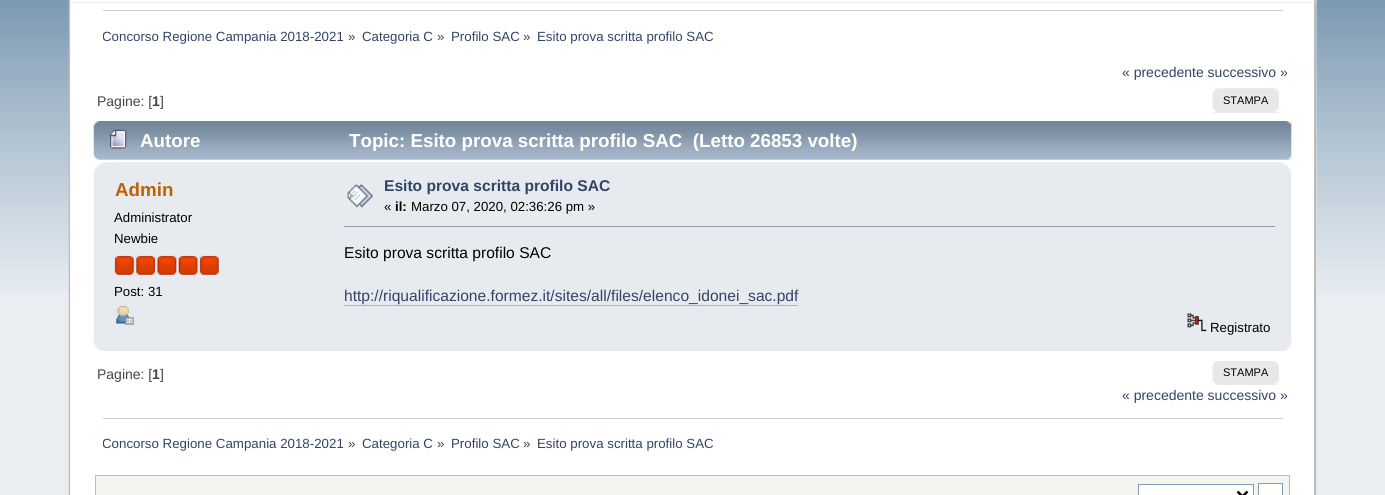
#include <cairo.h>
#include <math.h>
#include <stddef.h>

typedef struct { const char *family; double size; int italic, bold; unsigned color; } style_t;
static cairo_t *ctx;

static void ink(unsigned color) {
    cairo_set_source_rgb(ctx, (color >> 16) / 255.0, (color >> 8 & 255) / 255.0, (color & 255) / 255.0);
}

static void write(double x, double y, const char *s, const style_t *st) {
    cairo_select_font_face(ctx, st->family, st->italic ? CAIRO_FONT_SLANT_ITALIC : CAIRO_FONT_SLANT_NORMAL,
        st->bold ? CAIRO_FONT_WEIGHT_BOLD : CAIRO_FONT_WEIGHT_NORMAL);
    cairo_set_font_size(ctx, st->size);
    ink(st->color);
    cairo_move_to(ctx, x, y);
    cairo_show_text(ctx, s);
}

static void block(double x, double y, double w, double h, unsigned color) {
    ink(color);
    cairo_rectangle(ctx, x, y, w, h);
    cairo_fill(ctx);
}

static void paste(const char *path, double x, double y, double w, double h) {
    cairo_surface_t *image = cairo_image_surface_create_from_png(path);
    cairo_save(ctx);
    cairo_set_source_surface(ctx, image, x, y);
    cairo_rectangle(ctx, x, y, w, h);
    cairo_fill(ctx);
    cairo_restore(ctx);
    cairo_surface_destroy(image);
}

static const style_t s1 = {"Liberation Sans", 13.3, 0, 0, 0x334466};
static const style_t s2 = {"Liberation Sans", 13.3, 0, 0, 0x444444};
static const style_t s3 = {"Liberation Sans", 14, 0, 0, 0x334466};
static const style_t s4 = {"Liberation Sans", 14, 0, 0, 0x444444};
static const style_t s5 = {"Liberation Sans", 14, 0, 1, 0x444444};
static const style_t s6 = {"Liberation Sans", 11, 0, 0, 0x000000};
static const style_t s7 = {"Liberation Sans", 18.75, 0, 1, 0xffffff};
static const style_t s8 = {"Liberation Sans", 18.75, 0, 1, 0xc06002};
static const style_t s9 = {"Liberation Sans", 13.25, 0, 0, 0x000000};
static const style_t s10 = {"Liberation Sans", 15.6, 0, 1, 0x334466};
static const style_t s11 = {"Liberation Sans", 13.25, 0, 1, 0x000000};
static const style_t s12 = {"Liberation Sans", 15.6, 0, 0, 0x000000};
static const style_t s13 = {"Liberation Sans", 15.6, 0, 0, 0x334466};

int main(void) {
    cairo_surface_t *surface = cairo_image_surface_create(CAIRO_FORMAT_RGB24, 1385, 495);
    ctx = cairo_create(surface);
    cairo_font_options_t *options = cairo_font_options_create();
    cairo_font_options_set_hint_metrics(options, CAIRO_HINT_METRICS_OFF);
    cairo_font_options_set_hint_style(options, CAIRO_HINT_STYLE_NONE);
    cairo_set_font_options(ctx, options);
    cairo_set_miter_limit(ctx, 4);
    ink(0xe9eef2);
    cairo_paint(ctx);
    paste("pic1.png", 0, 0, 1385, 293);
    paste("pic2.png", 68, 0, 1246, 3);
    block(1314, 0, 3, 3, 0xc0c0c0);
    paste("pic3.png", 68, 2, 1249, 493);
    paste("pic4.png", 1313, 2, 4, 493);
    block(103, 10, 1180, 1, 0xcccccc);
    cairo_save(ctx);
    cairo_rectangle(ctx, 103, 11, 1180, 42);
    cairo_clip(ctx);
    write(102, 41, "Concorso Regione Campania 2018-2021", &s1);
    cairo_restore(ctx);
    write(348, 41, "»", &s2);
    write(362, 41, "Categoria C", &s1);
    write(437, 41, "»", &s2);
    write(451, 41, "Profilo SAC", &s1);
    write(523, 41, "»", &s2);
    write(537, 41, "Esito prova scritta profilo SAC", &s1);
    write(1122, 77, "« precedente successivo »", &s3);
    write(97, 106, "Pagine: [", &s4);
    write(152, 106, "1", &s5);
    write(160, 106, "]", &s4);
    block(1213, 89, 66, 24, 0xe8e8e8);
    paste("pic5.png", 1212, 88, 67, 25);
    paste("pic6.png", 1223, 88, 56, 25);
    write(1223, 104, "STAMPA", &s6);
    paste("pic7.png", 93, 121, 1199, 39);
    paste("pic8.png", 1286, 121, 6, 39);
    paste("pic9.png", 109, 129, 18, 20);
    write(140, 147, "Autore", &s7);
    write(349, 147, "Topic: Esito prova scritta profilo SAC  (Letto 26853 volte)", &s7);
    block(94, 176, 1197, 162, 0xe7eaef);
    paste("pic10.png", 93, 162, 1199, 14);
    paste("pic11.png", 119, 162, 1173, 14);
    write(115, 196, "Admin", &s8);
    write(114, 222, "Administrator", &s9);
    write(114, 243, "Newbie", &s9);
    paste("pic12.png", 114, 255, 20, 20);
    paste("pic13.png", 136, 255, 20, 20);
    paste("pic14.png", 157, 255, 20, 20);
    paste("pic15.png", 178, 255, 20, 20);
    paste("pic16.png", 199, 255, 20, 20);
    write(114, 296, "Post: 31", &s9);
    paste("pic17.png", 116, 305, 18, 20);
    paste("pic18.png", 347, 184, 26, 24);
    write(384, 191, "Esito prova scritta profilo SAC", &s10);
    write(384, 211, "«", &s9);
    write(395, 211, "il:", &s11);
    write(411, 211, "Marzo 07, 2020, 02:36:26 pm »", &s9);
    block(344, 226, 931, 1, 0x9999aa);
    write(344, 258, "Esito prova scritta profilo SAC", &s12);
    write(344, 301, "http://riqualificazione.formez.it/sites/all/files/elenco_idonei_sac.pdf", &s13);
    block(344, 305, 454, 1, 0xa8b6cf);
    paste("pic19.png", 1187, 313, 20, 19);
    write(1210, 332, "Registrato", &s9);
    paste("pic20.png", 93, 338, 1199, 13);
    paste("pic21.png", 1284, 338, 8, 13);
    write(97, 379, "Pagine: [", &s4);
    write(152, 379, "1", &s5);
    write(160, 379, "]", &s4);
    block(1213, 361, 66, 24, 0xe8e8e8);
    paste("pic22.png", 1212, 361, 5, 24);
    paste("pic23.png", 1274, 361, 5, 24);
    write(1223, 376, "STAMPA", &s6);
    write(1122, 400, "« precedente successivo »", &s3);
    block(103, 418, 1180, 1, 0xcccccc);
    cairo_save(ctx);
    cairo_rectangle(ctx, 103, 419, 1180, 41);
    cairo_clip(ctx);
    write(102, 448, "Concorso Regione Campania 2018-2021", &s1);
    cairo_restore(ctx);
    write(348, 448, "»", &s2);
    write(362, 448, "Categoria C", &s1);
    write(437, 448, "»", &s2);
    write(451, 448, "Profilo SAC", &s1);
    write(523, 448, "»", &s2);
    write(537, 448, "Esito prova scritta profilo SAC", &s1);
    ink(0xf5f5f0);
    cairo_rectangle(ctx, 95.5, 475.5, 1194, 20);
    cairo_fill_preserve(ctx);
    ink(0xbbbbbb);
    cairo_set_line_width(ctx, 1);
    cairo_stroke(ctx);
    ink(0xffffff);
    cairo_rectangle(ctx, 1138.5, 484.5, 115, 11);
    cairo_fill_preserve(ctx);
    ink(0x7f9db9);
    cairo_stroke(ctx);
    cairo_new_path(ctx);
    cairo_move_to(ctx, 1237.5, 491.5);
    cairo_line_to(ctx, 1242.5, 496.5);
    cairo_line_to(ctx, 1247.5, 491.5);
    ink(0x000000);
    cairo_set_line_width(ctx, 2.5);
    cairo_stroke(ctx);
    ink(0xffffff);
    cairo_rectangle(ctx, 1258.5, 483.5, 24, 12);
    cairo_fill_preserve(ctx);
    ink(0x7f9db9);
    cairo_set_line_width(ctx, 1);
    cairo_stroke(ctx);
    cairo_surface_write_to_png(surface, "screenshot.png");
    cairo_font_options_destroy(options);
    cairo_destroy(ctx);
    cairo_surface_destroy(surface);
    return 0;
}
